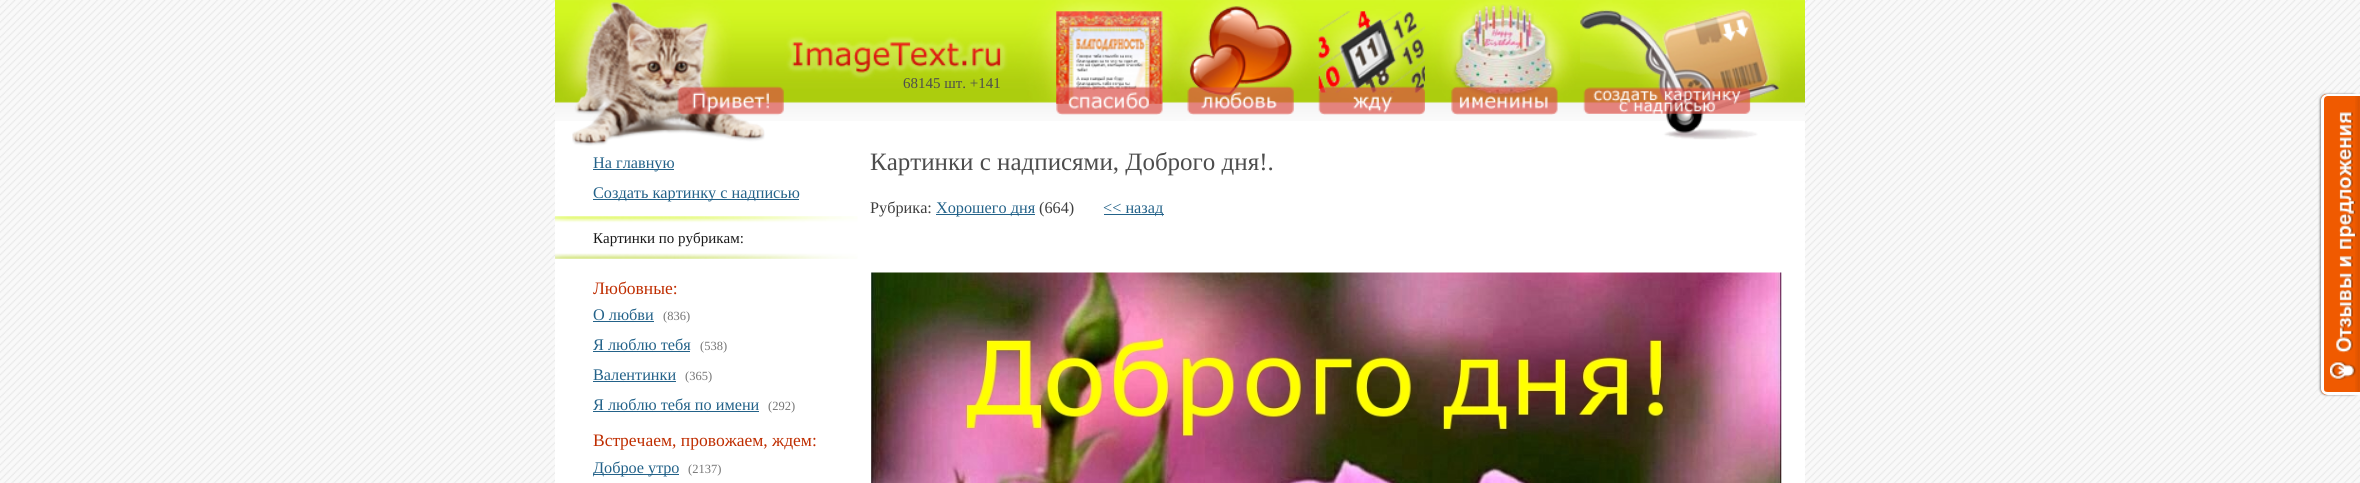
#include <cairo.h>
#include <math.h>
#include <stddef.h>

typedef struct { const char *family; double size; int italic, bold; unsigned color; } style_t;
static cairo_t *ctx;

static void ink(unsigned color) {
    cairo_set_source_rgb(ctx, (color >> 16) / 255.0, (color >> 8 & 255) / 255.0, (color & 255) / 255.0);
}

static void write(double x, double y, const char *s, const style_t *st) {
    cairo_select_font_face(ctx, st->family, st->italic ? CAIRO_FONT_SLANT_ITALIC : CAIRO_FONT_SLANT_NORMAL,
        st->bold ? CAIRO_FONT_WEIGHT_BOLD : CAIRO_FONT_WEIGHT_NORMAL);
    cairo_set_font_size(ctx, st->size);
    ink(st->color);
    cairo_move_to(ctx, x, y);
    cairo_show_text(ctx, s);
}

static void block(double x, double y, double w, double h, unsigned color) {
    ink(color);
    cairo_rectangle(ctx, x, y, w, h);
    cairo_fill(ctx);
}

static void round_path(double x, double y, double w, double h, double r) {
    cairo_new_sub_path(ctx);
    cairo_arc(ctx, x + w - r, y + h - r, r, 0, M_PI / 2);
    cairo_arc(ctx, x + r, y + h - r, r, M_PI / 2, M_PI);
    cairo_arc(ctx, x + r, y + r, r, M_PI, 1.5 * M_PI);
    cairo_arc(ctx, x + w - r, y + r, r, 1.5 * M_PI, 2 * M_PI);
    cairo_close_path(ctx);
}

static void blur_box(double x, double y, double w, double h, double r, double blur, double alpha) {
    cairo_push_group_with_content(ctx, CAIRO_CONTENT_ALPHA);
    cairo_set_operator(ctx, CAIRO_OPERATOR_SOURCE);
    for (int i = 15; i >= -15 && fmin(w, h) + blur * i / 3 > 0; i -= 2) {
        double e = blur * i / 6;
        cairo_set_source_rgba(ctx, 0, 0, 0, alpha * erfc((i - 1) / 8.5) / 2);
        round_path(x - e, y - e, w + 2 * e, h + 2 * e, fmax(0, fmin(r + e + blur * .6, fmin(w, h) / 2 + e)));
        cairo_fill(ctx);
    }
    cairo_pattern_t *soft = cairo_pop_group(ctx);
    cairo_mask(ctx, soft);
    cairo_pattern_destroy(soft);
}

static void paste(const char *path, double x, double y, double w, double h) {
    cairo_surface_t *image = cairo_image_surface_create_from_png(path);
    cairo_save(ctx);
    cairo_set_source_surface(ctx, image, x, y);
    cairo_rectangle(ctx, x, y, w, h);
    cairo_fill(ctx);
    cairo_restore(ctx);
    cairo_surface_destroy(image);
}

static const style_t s1 = {"Liberation Serif", 15, 0, 0, 0x4d4d4d};
static const style_t s2 = {"Liberation Serif", 16.25, 0, 0, 0x236289};
static const style_t s3 = {"Liberation Serif", 15, 0, 0, 0x191919};
static const style_t s4 = {"Liberation Serif", 17.5, 0, 0, 0xbf2d00};
static const style_t s5 = {"Liberation Serif", 12.5, 0, 0, 0x757575};
static const style_t s6 = {"Liberation Serif", 25, 0, 0, 0x4d4d4d};
static const style_t s7 = {"Liberation Serif", 16.25, 0, 0, 0x3e3e3e};

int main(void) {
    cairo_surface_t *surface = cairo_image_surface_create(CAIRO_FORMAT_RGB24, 2360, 483);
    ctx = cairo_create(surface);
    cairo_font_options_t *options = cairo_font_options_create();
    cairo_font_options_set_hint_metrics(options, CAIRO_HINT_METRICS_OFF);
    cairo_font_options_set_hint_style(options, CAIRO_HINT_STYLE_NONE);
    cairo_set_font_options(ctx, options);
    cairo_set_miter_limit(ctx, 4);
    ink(0xffffff);
    cairo_paint(ctx);
    paste("pic1.png", 0, 0, 2360, 483);
    block(555, 121, 1250, 362, 0xffffff);
    paste("pic2.png", 555, 0, 1250, 121);
    paste("pic3.png", 572, 2, 212, 144);
    write(903, 88, "68145 шт. +141", &s1);
    paste("pic4.png", 1056, 11, 107, 104);
    paste("pic5.png", 1187, 6, 107, 109);
    paste("pic6.png", 1318, 11, 107, 104);
    paste("pic7.png", 1451, 4, 107, 111);
    paste("pic8.png", 1580, 8, 200, 132);
    block(593, 169, 81, 1, 0x236289);
    write(593, 168, "На главную", &s2);
    block(593, 199, 206, 1, 0x236289);
    write(593, 198, "Создать картинку с надписью", &s2);
    paste("pic9.png", 555, 216, 303, 43);
    write(593, 243, "Картинки по рубрикам:", &s3);
    write(593, 294, "Любовные:", &s4);
    write(593, 320, "О любви", &s2);
    block(593, 321, 61, 1, 0x236289);
    write(663, 320, "(836)", &s5);
    write(593, 350, "Я люблю тебя", &s2);
    block(593, 351, 97, 1, 0x236289);
    write(700, 350, "(538)", &s5);
    write(593, 380, "Валентинки", &s2);
    block(593, 381, 83, 1, 0x236289);
    write(685, 380, "(365)", &s5);
    write(593, 410, "Я люблю тебя по имени", &s2);
    block(593, 411, 166, 1, 0x236289);
    write(768, 410, "(292)", &s5);
    write(593, 446, "Встречаем, провожаем, ждем:", &s4);
    block(593, 474, 86, 1, 0x236289);
    write(593, 473, "Доброе утро", &s2);
    write(688, 473, "(2137)", &s5);
    write(870, 170, "Картинки с надписями, Доброго дня!.", &s6);
    write(870, 213, "Рубрика:", &s7);
    block(936, 214, 99, 1, 0x236289);
    write(936, 213, "Хорошего дня", &s2);
    write(1039, 213, "(664)", &s7);
    block(1104, 214, 60, 1, 0x236289);
    write(1103, 213, "<< назад", &s2);
    paste("pic10.png", 871, 272, 911, 211);
    ink(0x888888);
    blur_box(2320, 94, 39, 301, 6, 1, 1);
    ink(0xf05a00);
    cairo_new_path(ctx);
    cairo_move_to(ctx, 2327, 94);
    cairo_line_to(ctx, 2360, 94);
    cairo_line_to(ctx, 2360, 395);
    cairo_line_to(ctx, 2327, 395);
    cairo_curve_to(ctx, 2323.5, 395, 2321, 392.5, 2321, 389);
    cairo_line_to(ctx, 2321, 100);
    cairo_curve_to(ctx, 2321, 96.5, 2323.5, 94, 2327, 94);
    cairo_close_path(ctx);
    cairo_fill(ctx);
    paste("pic11.png", 2355, 96, 5, 296);
    ink(0xffffff);
    cairo_set_fill_rule(ctx, CAIRO_FILL_RULE_EVEN_ODD);
    cairo_new_path(ctx);
    cairo_move_to(ctx, 2328, 94);
    cairo_line_to(ctx, 2360, 94);
    cairo_line_to(ctx, 2360, 395);
    cairo_line_to(ctx, 2328, 395);
    cairo_curve_to(ctx, 2324, 395, 2321, 392, 2321, 389);
    cairo_line_to(ctx, 2321, 100);
    cairo_curve_to(ctx, 2321, 97, 2324, 94, 2328, 94);
    cairo_close_path(ctx);
    cairo_move_to(ctx, 2328, 96);
    cairo_line_to(ctx, 2360, 96);
    cairo_line_to(ctx, 2360, 392);
    cairo_line_to(ctx, 2328, 392);
    cairo_curve_to(ctx, 2325, 392, 2324, 391, 2324, 389);
    cairo_line_to(ctx, 2324, 100);
    cairo_curve_to(ctx, 2324, 98, 2325, 96, 2328, 96);
    cairo_close_path(ctx);
    cairo_fill(ctx);
    paste("pic12.png", 2330, 112, 27, 268);
    cairo_surface_write_to_png(surface, "screenshot.png");
    cairo_font_options_destroy(options);
    cairo_destroy(ctx);
    cairo_surface_destroy(surface);
    return 0;
}
